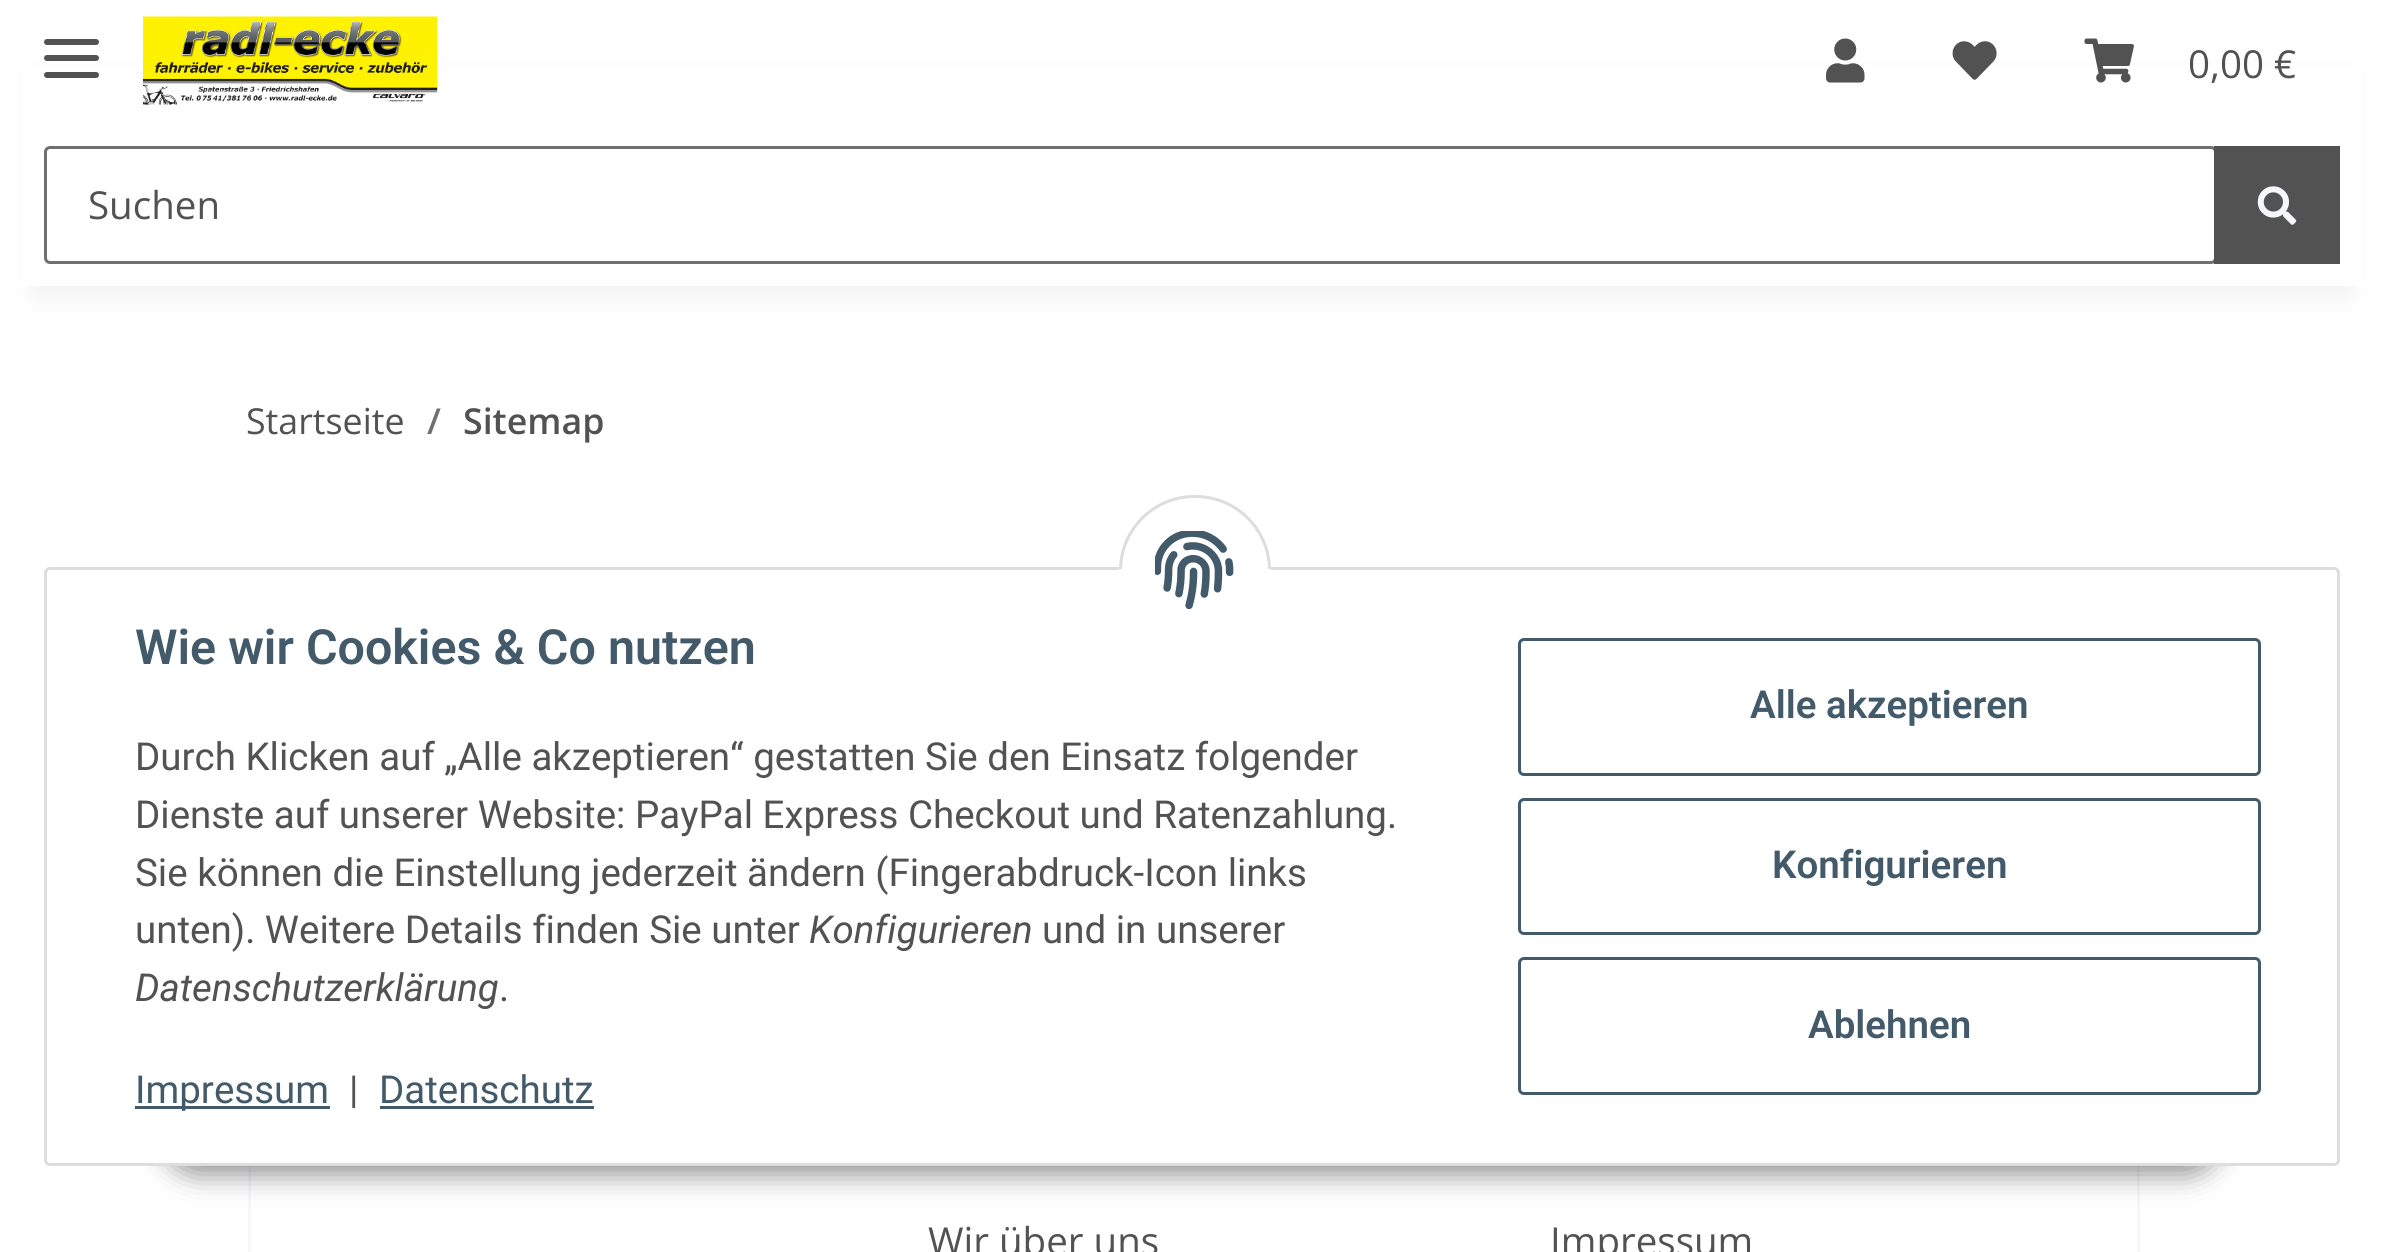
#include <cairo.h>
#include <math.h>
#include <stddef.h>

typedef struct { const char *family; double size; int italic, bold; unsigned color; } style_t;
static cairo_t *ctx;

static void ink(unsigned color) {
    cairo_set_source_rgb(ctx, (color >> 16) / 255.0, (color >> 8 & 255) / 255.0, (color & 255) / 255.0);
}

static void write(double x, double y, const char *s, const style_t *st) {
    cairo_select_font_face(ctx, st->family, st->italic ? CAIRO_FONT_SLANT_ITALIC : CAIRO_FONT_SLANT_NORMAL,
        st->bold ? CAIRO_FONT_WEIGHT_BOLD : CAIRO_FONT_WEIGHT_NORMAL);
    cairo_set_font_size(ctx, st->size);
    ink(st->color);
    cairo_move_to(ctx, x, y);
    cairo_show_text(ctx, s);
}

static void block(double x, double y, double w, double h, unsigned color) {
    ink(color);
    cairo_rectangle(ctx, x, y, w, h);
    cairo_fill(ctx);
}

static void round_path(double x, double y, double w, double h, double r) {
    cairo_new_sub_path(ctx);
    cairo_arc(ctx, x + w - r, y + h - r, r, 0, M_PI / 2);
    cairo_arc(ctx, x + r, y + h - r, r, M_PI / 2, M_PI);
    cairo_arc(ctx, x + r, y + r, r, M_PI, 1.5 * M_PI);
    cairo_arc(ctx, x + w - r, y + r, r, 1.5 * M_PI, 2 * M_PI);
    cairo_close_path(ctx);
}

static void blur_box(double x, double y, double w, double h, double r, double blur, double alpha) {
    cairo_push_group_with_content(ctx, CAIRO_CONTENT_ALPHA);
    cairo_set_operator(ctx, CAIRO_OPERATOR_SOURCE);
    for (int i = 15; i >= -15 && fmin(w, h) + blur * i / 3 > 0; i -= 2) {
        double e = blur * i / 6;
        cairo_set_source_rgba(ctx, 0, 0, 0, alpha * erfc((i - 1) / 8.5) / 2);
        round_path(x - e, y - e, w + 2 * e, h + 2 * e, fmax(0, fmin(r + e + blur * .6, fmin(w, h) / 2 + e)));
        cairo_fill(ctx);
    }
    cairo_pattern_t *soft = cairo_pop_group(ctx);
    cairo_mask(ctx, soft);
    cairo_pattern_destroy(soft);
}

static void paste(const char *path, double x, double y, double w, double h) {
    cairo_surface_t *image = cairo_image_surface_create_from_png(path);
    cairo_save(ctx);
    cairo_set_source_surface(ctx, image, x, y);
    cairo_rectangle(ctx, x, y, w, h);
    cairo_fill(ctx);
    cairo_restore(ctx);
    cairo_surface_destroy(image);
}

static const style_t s1 = {"Open Sans", 38.5, 0, 0, 0x525252};
static const style_t s2 = {"Open Sans", 35.75, 0, 0, 0x525252};
static const style_t s3 = {"Open Sans SemiBold", 35.75, 0, 0, 0x707070};
static const style_t s4 = {"Open Sans SemiBold", 35.75, 0, 0, 0x525252};
static const style_t s5 = {"Roboto SemiBold", 48.4, 0, 0, 0x435a6b};
static const style_t s6 = {"Roboto", 38.5, 0, 0, 0x525252};
static const style_t s7 = {"Roboto", 38.5, 1, 0, 0x525252};
static const style_t s8 = {"Roboto", 38.5, 0, 0, 0x435a6b};
static const style_t s9 = {"Roboto SemiBold", 38.5, 0, 0, 0x435a6b};

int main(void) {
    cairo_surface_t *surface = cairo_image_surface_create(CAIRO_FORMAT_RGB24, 2382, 1252);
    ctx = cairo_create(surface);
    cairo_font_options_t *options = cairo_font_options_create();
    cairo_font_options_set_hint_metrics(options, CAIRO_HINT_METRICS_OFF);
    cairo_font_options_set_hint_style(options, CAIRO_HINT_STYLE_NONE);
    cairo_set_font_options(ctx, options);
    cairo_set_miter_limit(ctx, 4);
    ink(0xffffff);
    cairo_paint(ctx);
    ink(0x000000);
    blur_box(33, 77, 2318, 220, 0, 12.5, 0.06);
    block(21, 65, 2342, 221, 0xffffff);
    ink(0x525252);
    round_path(44, 55, 55, 6, 3);
    cairo_fill(ctx);
    round_path(44, 39, 55, 6, 3);
    cairo_fill(ctx);
    round_path(44, 72, 55, 6, 3);
    cairo_fill(ctx);
    paste("pic1.png", 143, 16, 295, 89);
    paste("pic2.png", 1826, 38, 39, 45);
    paste("pic3.png", 1952, 41, 45, 39);
    paste("pic4.png", 2084, 38, 50, 45);
    write(2188, 78, "0,00 €", &s1);
    round_path(45.5, 147.5, 2170, 115, 4.5);
    ink(0x707070);
    cairo_set_line_width(ctx, 3);
    cairo_stroke(ctx);
    write(88, 219, "Suchen", &s1);
    block(2214, 146, 126, 118, 0x525252);
    paste("pic5.png", 2257, 186, 40, 39);
    write(246, 434, "Startseite", &s2);
    write(427, 434, "/", &s3);
    write(463, 434, "Sitemap", &s4);
    cairo_rectangle(ctx, 249.5, 702.5, 1889, 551);
    ink(0xf5f7fa);
    cairo_stroke(ctx);
    write(928, 1255, "Wir über uns", &s1);
    write(1550, 1255, "Impressum", &s1);
    ink(0x000000);
    blur_box(162, 1086, 2060, 88, 44, 14, 0.45);
    ink(0xffffff);
    round_path(45.5, 568.5, 2293, 596, 4.5);
    cairo_fill_preserve(ctx);
    ink(0xdddddd);
    cairo_stroke(ctx);
    ink(0xffffff);
    round_path(1120.5, 496.5, 149, 148, 74);
    cairo_fill_preserve(ctx);
    ink(0xdddddd);
    cairo_stroke(ctx);
    block(1119, 569, 152, 77, 0xffffff);
    paste("pic6.png", 1155, 531, 79, 79);
    write(135, 664, "Wie wir Cookies & Co nutzen", &s5);
    write(135, 770, "Durch Klicken auf „Alle akzeptieren“ gestatten Sie den Einsatz folgender", &s6);
    write(135, 828, "Dienste auf unserer Website: PayPal Express Checkout und Ratenzahlung.", &s6);
    write(135, 886, "Sie können die Einstellung jederzeit ändern (Fingerabdruck-Icon links", &s6);
    write(135, 943, "unten). Weitere Details finden Sie unter", &s6);
    write(809, 943, "Konfigurieren", &s7);
    write(1042, 943, "und in unserer", &s6);
    write(135, 1001, "Datenschutzerklärung", &s7);
    write(499, 1001, ".", &s6);
    block(135, 1106, 195, 3, 0x435a6b);
    write(135, 1103, "Impressum", &s8);
    write(349, 1103, "|", &s6);
    write(379, 1103, "Datenschutz", &s8);
    block(380, 1106, 214, 3, 0x435a6b);
    round_path(1519.5, 639.5, 740, 135, 4.5);
    cairo_stroke(ctx);
    write(1750, 718, "Alle akzeptieren", &s9);
    round_path(1519.5, 799.5, 740, 134, 4.5);
    cairo_stroke(ctx);
    write(1772, 878, "Konfigurieren", &s9);
    round_path(1519.5, 958.5, 740, 135, 4.5);
    cairo_stroke(ctx);
    write(1808, 1038, "Ablehnen", &s9);
    cairo_surface_write_to_png(surface, "screenshot.png");
    cairo_font_options_destroy(options);
    cairo_destroy(ctx);
    cairo_surface_destroy(surface);
    return 0;
}
